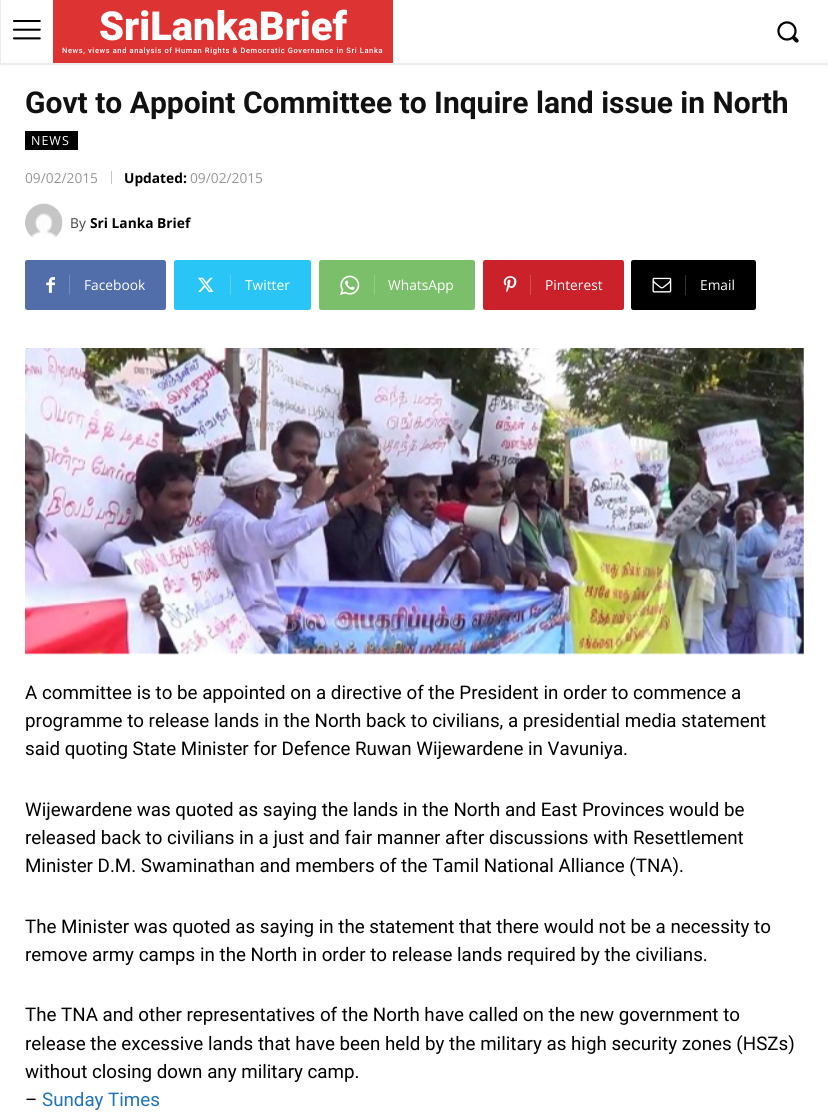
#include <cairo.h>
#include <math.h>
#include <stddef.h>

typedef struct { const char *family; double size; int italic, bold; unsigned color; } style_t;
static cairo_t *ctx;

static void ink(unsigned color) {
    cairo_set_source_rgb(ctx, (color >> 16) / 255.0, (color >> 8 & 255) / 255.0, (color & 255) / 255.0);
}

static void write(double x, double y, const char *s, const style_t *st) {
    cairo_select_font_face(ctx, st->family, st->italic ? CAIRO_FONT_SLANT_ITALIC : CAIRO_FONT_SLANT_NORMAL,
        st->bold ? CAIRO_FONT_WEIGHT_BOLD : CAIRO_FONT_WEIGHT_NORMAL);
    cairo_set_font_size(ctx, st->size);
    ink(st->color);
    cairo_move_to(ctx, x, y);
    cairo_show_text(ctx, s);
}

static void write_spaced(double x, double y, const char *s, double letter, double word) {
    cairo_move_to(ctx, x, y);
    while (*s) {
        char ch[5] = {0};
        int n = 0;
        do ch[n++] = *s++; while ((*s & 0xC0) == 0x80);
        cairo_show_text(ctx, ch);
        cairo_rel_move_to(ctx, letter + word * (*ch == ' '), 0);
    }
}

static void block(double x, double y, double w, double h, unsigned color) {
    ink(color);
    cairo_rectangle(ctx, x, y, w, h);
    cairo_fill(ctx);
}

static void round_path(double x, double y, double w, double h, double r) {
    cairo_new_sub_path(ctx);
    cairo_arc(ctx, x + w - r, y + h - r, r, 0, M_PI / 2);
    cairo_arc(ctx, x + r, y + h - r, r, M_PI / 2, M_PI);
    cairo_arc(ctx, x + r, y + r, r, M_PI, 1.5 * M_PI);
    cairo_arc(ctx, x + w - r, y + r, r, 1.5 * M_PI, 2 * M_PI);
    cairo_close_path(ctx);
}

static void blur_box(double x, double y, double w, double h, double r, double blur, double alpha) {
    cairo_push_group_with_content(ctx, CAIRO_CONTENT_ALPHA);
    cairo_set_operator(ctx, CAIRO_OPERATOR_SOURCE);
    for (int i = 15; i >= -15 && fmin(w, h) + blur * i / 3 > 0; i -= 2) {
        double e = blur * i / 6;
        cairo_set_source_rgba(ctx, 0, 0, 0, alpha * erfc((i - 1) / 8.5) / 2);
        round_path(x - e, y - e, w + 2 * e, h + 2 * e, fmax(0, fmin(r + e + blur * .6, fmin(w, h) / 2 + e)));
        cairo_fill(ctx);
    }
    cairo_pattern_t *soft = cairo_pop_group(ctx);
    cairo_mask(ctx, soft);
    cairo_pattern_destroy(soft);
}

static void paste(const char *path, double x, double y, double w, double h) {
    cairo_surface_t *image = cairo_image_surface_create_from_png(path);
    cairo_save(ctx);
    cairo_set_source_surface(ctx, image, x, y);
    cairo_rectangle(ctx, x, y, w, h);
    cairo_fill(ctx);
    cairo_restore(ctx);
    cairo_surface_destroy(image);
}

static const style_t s1 = {"Roboto Black", 40, 0, 0, 0xffffff};
static const style_t s2 = {"Roboto", 30, 0, 1, 0x111111};
static const style_t s3 = {"Open Sans", 13.75, 0, 0, 0x969696};
static const style_t s4 = {"Open Sans", 13.75, 0, 1, 0x000000};
static const style_t s5 = {"Open Sans", 13.75, 0, 0, 0x444444};
static const style_t s6 = {"Open Sans", 13.75, 0, 0, 0xffffff};
static const style_t s7 = {"Roboto", 18.75, 0, 0, 0x000000};
static const style_t s8 = {"Roboto", 18.75, 0, 0, 0x1e73be};

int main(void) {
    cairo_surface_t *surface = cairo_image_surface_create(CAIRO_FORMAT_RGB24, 828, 1113);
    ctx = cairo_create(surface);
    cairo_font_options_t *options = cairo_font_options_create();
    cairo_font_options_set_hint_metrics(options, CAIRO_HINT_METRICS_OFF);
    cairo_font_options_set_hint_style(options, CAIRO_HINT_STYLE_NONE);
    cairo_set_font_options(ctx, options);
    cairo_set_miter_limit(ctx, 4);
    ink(0xffffff);
    cairo_paint(ctx);
    paste("pic1.png", 12, 20, 29, 20);
    block(53, 0, 340, 63, 0xdd3333);
    paste("pic2.png", 777, 21, 22, 22);
    cairo_save(ctx);
    cairo_set_fill_rule(ctx, CAIRO_FILL_RULE_EVEN_ODD);
    cairo_new_path(ctx);
    cairo_move_to(ctx, 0, 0);
    cairo_line_to(ctx, 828, 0);
    cairo_line_to(ctx, 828, 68);
    cairo_line_to(ctx, 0, 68);
    cairo_close_path(ctx);
    cairo_move_to(ctx, 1, 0);
    cairo_line_to(ctx, 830, 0);
    cairo_line_to(ctx, 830, 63);
    cairo_line_to(ctx, 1, 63);
    cairo_close_path(ctx);
    cairo_clip(ctx);
    ink(0x000000);
    blur_box(0, 0, 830, 65, 0, 0.5, 0.08);
    cairo_restore(ctx);
    write(99, 40, "SriLankaBrief", &s1);
    cairo_select_font_face(ctx, "Roboto Medium", CAIRO_FONT_SLANT_NORMAL, CAIRO_FONT_WEIGHT_NORMAL);
    cairo_set_font_size(ctx, 7.5);
    write_spaced(62, 53, "News, views and analysis of Human Rights & Democratic Governance in Sri Lanka", 0.62, 0);
    write(25, 113, "Govt to Appoint Committee to Inquire land issue in North", &s2);
    block(25, 131, 53, 19, 0x000000);
    cairo_select_font_face(ctx, "Open Sans", CAIRO_FONT_SLANT_NORMAL, CAIRO_FONT_WEIGHT_NORMAL);
    cairo_set_font_size(ctx, 12.5);
    ink(0xffffff);
    write_spaced(31, 145, "NEWS", 1, 0);
    write(25, 183, "09/02/2015", &s3);
    block(111, 171, 1, 13, 0xc4c4c4);
    write(124, 183, "Updated:", &s4);
    write(190, 183, "09/02/2015", &s3);
    paste("pic3.png", 25, 203, 38, 35);
    write(70, 228, "By", &s5);
    write(90, 228, "Sri Lanka Brief", &s4);
    ink(0x516eab);
    cairo_new_path(ctx);
    cairo_move_to(ctx, 69, 260);
    cairo_line_to(ctx, 163.5, 260);
    cairo_curve_to(ctx, 165, 260, 166, 261, 166, 262.5);
    cairo_line_to(ctx, 166, 307.5);
    cairo_curve_to(ctx, 166, 309, 165, 310, 163.5, 310);
    cairo_line_to(ctx, 69, 310);
    cairo_close_path(ctx);
    cairo_fill(ctx);
    cairo_new_path(ctx);
    cairo_move_to(ctx, 27.5, 260);
    cairo_line_to(ctx, 76, 260);
    cairo_line_to(ctx, 76, 310);
    cairo_line_to(ctx, 27.5, 310);
    cairo_curve_to(ctx, 26, 310, 25, 309, 25, 307.5);
    cairo_line_to(ctx, 25, 262.5);
    cairo_curve_to(ctx, 25, 261, 26, 260, 27.5, 260);
    cairo_close_path(ctx);
    cairo_fill(ctx);
    paste("pic4.png", 46, 277, 9, 16);
    block(69, 275, 1, 20, 0x748bbc);
    write(84, 290, "Facebook", &s6);
    ink(0x29c5f6);
    cairo_new_path(ctx);
    cairo_move_to(ctx, 230, 260);
    cairo_line_to(ctx, 308.5, 260);
    cairo_curve_to(ctx, 310, 260, 311, 261, 311, 262.5);
    cairo_line_to(ctx, 311, 307.5);
    cairo_curve_to(ctx, 311, 309, 310, 310, 308.5, 310);
    cairo_line_to(ctx, 230, 310);
    cairo_close_path(ctx);
    cairo_fill(ctx);
    cairo_new_path(ctx);
    cairo_move_to(ctx, 176.5, 260);
    cairo_line_to(ctx, 238, 260);
    cairo_line_to(ctx, 238, 310);
    cairo_line_to(ctx, 176.5, 310);
    cairo_curve_to(ctx, 175, 310, 174, 309, 174, 307.5);
    cairo_line_to(ctx, 174, 262.5);
    cairo_curve_to(ctx, 174, 261, 175, 260, 176.5, 260);
    cairo_close_path(ctx);
    cairo_fill(ctx);
    paste("pic5.png", 198, 277, 16, 15);
    block(230, 275, 1, 20, 0x54d1f8);
    write(245, 290, "Twitter", &s6);
    ink(0x7bbf6a);
    cairo_new_path(ctx);
    cairo_move_to(ctx, 374, 260);
    cairo_line_to(ctx, 472.5, 260);
    cairo_curve_to(ctx, 474, 260, 475, 261, 475, 262.5);
    cairo_line_to(ctx, 475, 307.5);
    cairo_curve_to(ctx, 475, 309, 474, 310, 472.5, 310);
    cairo_line_to(ctx, 374, 310);
    cairo_close_path(ctx);
    cairo_fill(ctx);
    cairo_new_path(ctx);
    cairo_move_to(ctx, 321.5, 260);
    cairo_line_to(ctx, 381, 260);
    cairo_line_to(ctx, 381, 310);
    cairo_line_to(ctx, 321.5, 310);
    cairo_curve_to(ctx, 320, 310, 319, 309, 319, 307.5);
    cairo_line_to(ctx, 319, 262.5);
    cairo_curve_to(ctx, 319, 261, 320, 260, 321.5, 260);
    cairo_close_path(ctx);
    cairo_fill(ctx);
    paste("pic6.png", 340, 275, 20, 20);
    block(374, 275, 1, 20, 0x95cc88);
    write(388, 290, "WhatsApp", &s6);
    ink(0xca212a);
    cairo_new_path(ctx);
    cairo_move_to(ctx, 530, 260);
    cairo_line_to(ctx, 621.5, 260);
    cairo_curve_to(ctx, 623, 260, 624, 261, 624, 262.5);
    cairo_line_to(ctx, 624, 307.5);
    cairo_curve_to(ctx, 624, 309, 623, 310, 621.5, 310);
    cairo_line_to(ctx, 530, 310);
    cairo_close_path(ctx);
    cairo_fill(ctx);
    cairo_new_path(ctx);
    cairo_move_to(ctx, 485.5, 260);
    cairo_line_to(ctx, 538, 260);
    cairo_line_to(ctx, 538, 310);
    cairo_line_to(ctx, 485.5, 310);
    cairo_curve_to(ctx, 484, 310, 483, 309, 483, 307.5);
    cairo_line_to(ctx, 483, 262.5);
    cairo_curve_to(ctx, 483, 261, 484, 260, 485.5, 260);
    cairo_close_path(ctx);
    cairo_fill(ctx);
    paste("pic7.png", 503, 276, 14, 17);
    block(530, 275, 1, 20, 0xd54d55);
    write(545, 290, "Pinterest", &s6);
    ink(0x000000);
    cairo_new_path(ctx);
    cairo_move_to(ctx, 685, 260);
    cairo_line_to(ctx, 753.5, 260);
    cairo_curve_to(ctx, 755, 260, 756, 261, 756, 262.5);
    cairo_line_to(ctx, 756, 307.5);
    cairo_curve_to(ctx, 756, 309, 755, 310, 753.5, 310);
    cairo_line_to(ctx, 685, 310);
    cairo_close_path(ctx);
    cairo_fill(ctx);
    cairo_new_path(ctx);
    cairo_move_to(ctx, 633.5, 260);
    cairo_line_to(ctx, 693, 260);
    cairo_line_to(ctx, 693, 310);
    cairo_line_to(ctx, 633.5, 310);
    cairo_curve_to(ctx, 632, 310, 631, 309, 631, 307.5);
    cairo_line_to(ctx, 631, 262.5);
    cairo_curve_to(ctx, 631, 261, 632, 260, 633.5, 260);
    cairo_close_path(ctx);
    cairo_fill(ctx);
    paste("pic8.png", 652, 277, 20, 16);
    block(685, 275, 1, 20, 0x333333);
    write(700, 290, "Email", &s6);
    paste("pic9.png", 25, 348, 779, 307);
    write(25, 699, "A committee is to be appointed on a directive of the President in order to commence a", &s7);
    write(25, 727, "programme to release lands in the North back to civilians, a presidential media statement", &s7);
    write(25, 755, "said quoting State Minister for Defence Ruwan Wijewardene in Vavuniya.", &s7);
    write(25, 816, "Wijewardene was quoted as saying the lands in the North and East Provinces would be", &s7);
    write(25, 844, "released back to civilians in a just and fair manner after discussions with Resettlement", &s7);
    write(25, 872, "Minister D.M. Swaminathan and members of the Tamil National Alliance (TNA).", &s7);
    write(25, 933, "The Minister was quoted as saying in the statement that there would not be a necessity to", &s7);
    write(25, 961, "remove army camps in the North in order to release lands required by the civilians.", &s7);
    write(25, 1021, "The TNA and other representatives of the North have called on the new government to", &s7);
    write(25, 1050, "release the excessive lands that have been held by the military as high security zones (HSZs)", &s7);
    write(25, 1078, "without closing down any military camp.", &s7);
    write(25, 1106, "–", &s7);
    write(42, 1106, "Sunday Times", &s8);
    cairo_surface_write_to_png(surface, "screenshot.png");
    cairo_font_options_destroy(options);
    cairo_destroy(ctx);
    cairo_surface_destroy(surface);
    return 0;
}
